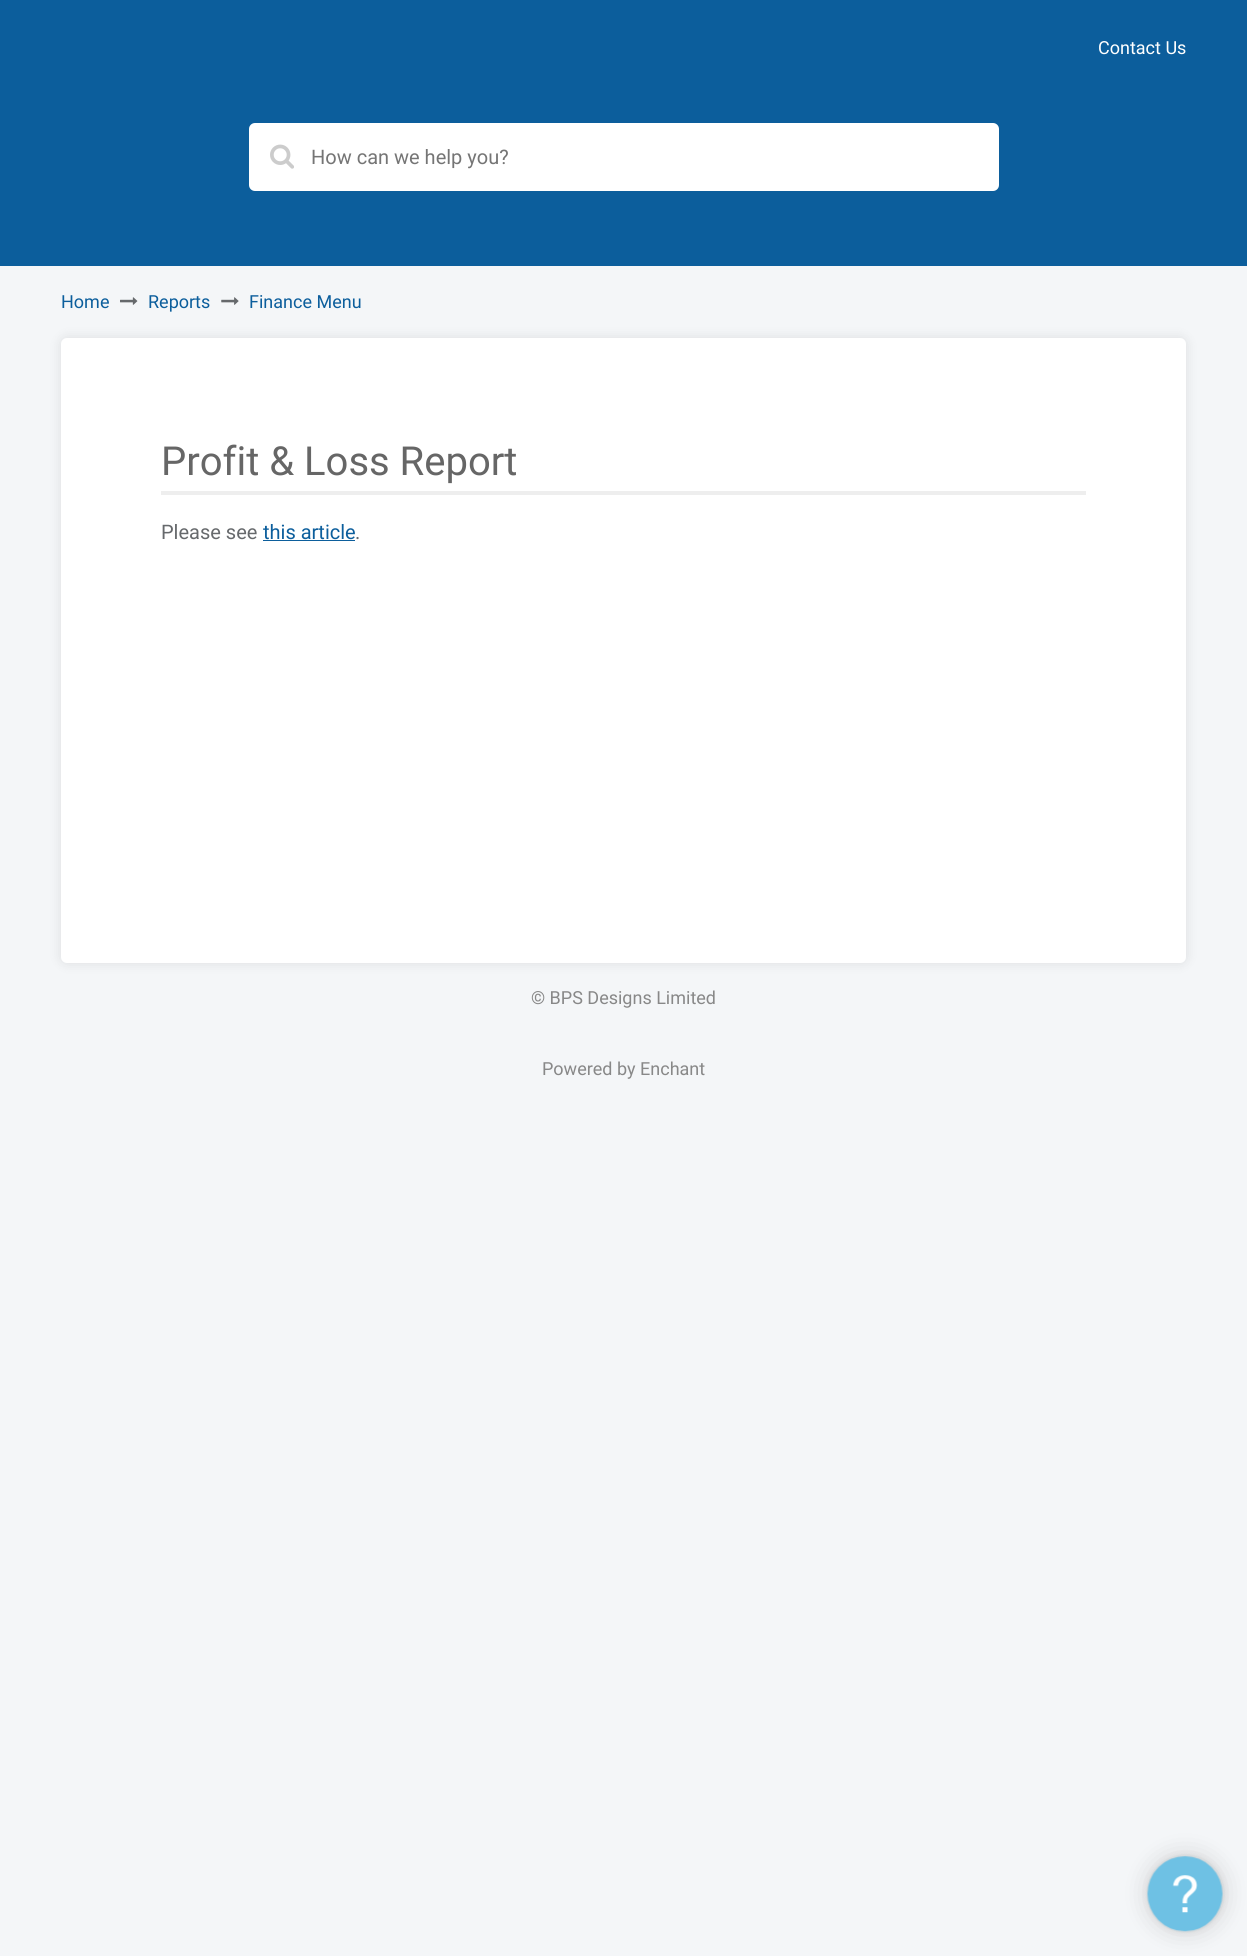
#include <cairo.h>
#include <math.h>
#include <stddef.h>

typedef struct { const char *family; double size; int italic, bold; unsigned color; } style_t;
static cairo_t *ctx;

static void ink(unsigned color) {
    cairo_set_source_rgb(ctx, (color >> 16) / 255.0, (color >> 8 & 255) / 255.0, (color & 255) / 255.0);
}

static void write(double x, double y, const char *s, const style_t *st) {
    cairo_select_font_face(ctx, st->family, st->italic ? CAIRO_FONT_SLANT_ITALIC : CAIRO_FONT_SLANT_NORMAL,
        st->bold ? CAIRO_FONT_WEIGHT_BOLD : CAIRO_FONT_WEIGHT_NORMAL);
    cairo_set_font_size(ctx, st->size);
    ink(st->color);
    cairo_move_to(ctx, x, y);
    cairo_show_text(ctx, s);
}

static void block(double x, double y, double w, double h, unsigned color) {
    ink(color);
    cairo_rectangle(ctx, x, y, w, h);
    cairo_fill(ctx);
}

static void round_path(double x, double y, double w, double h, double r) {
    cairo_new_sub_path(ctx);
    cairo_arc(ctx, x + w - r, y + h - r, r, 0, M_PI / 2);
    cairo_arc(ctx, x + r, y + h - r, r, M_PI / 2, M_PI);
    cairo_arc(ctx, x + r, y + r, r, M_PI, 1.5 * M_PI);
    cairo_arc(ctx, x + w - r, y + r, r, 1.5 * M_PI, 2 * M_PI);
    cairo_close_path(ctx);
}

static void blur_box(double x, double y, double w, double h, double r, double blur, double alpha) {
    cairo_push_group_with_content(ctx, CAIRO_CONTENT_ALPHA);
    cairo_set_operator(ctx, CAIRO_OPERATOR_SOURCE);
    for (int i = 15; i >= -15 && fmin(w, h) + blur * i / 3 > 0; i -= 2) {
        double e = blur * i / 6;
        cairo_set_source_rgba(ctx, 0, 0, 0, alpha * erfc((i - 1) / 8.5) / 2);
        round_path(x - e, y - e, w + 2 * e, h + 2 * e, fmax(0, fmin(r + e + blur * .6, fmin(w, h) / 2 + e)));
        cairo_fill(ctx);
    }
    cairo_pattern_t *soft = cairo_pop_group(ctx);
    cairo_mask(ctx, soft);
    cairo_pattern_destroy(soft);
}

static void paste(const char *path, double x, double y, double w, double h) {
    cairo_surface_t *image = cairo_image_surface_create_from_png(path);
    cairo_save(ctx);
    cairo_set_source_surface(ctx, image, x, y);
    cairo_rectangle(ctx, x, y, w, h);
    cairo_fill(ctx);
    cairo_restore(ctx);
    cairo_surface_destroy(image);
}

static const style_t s1 = {"Roboto", 18, 0, 0, 0xffffff};
static const style_t s2 = {"Roboto", 20, 0, 0, 0x757575};
static const style_t s3 = {"Roboto", 18, 0, 0, 0x0c5e9c};
static const style_t s4 = {"Roboto", 40, 0, 0, 0x666666};
static const style_t s5 = {"Roboto", 20, 0, 0, 0x66696c};
static const style_t s6 = {"Roboto", 20, 0, 0, 0x0c5e9c};
static const style_t s7 = {"Roboto", 18, 0, 0, 0x888888};

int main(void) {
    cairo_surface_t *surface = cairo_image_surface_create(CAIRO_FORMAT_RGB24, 1247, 1956);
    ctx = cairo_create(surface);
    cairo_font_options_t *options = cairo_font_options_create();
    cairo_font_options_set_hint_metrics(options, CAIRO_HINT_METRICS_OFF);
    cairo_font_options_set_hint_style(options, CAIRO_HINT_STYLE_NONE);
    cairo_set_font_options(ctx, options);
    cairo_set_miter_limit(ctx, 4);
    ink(0xf4f6f8);
    cairo_paint(ctx);
    block(0, 0, 1247, 266, 0x0c5e9c);
    write(1098, 54, "Contact Us", &s1);
    round_path(249, 123, 750, 68, 6);
    cairo_fill(ctx);
    paste("pic1.png", 270, 144, 24, 25);
    write(311, 164, "How can we help you?", &s2);
    write(61, 308, "Home", &s3);
    paste("pic2.png", 120, 297, 18, 8);
    write(148, 308, "Reports", &s3);
    paste("pic3.png", 221, 297, 18, 8);
    write(249, 308, "Finance Menu", &s3);
    ink(0x000000);
    blur_box(61, 338, 1125, 625, 6, 6, 0.1);
    ink(0xffffff);
    round_path(61, 338, 1125, 625, 6);
    cairo_fill(ctx);
    block(161, 491, 925, 4, 0xeeeeee);
    write(161, 475, "Profit & Loss Report", &s4);
    write(161, 539, "Please see", &s5);
    write(263, 539, "this article", &s6);
    block(263, 540, 92, 1, 0x0c5e9c);
    write(355, 539, ".", &s5);
    write(531, 1004, "© BPS Designs Limited", &s7);
    write(542, 1075, "Powered by Enchant", &s7);
    ink(0x000000);
    blur_box(1148, 1856, 75, 75, 37.5, 12.5, 0.15);
    blur_box(1148, 1856, 75, 75, 37.5, 3, 0.1);
    paste("pic4.png", 1147, 1856, 76, 76);
    cairo_surface_write_to_png(surface, "screenshot.png");
    cairo_font_options_destroy(options);
    cairo_destroy(ctx);
    cairo_surface_destroy(surface);
    return 0;
}
